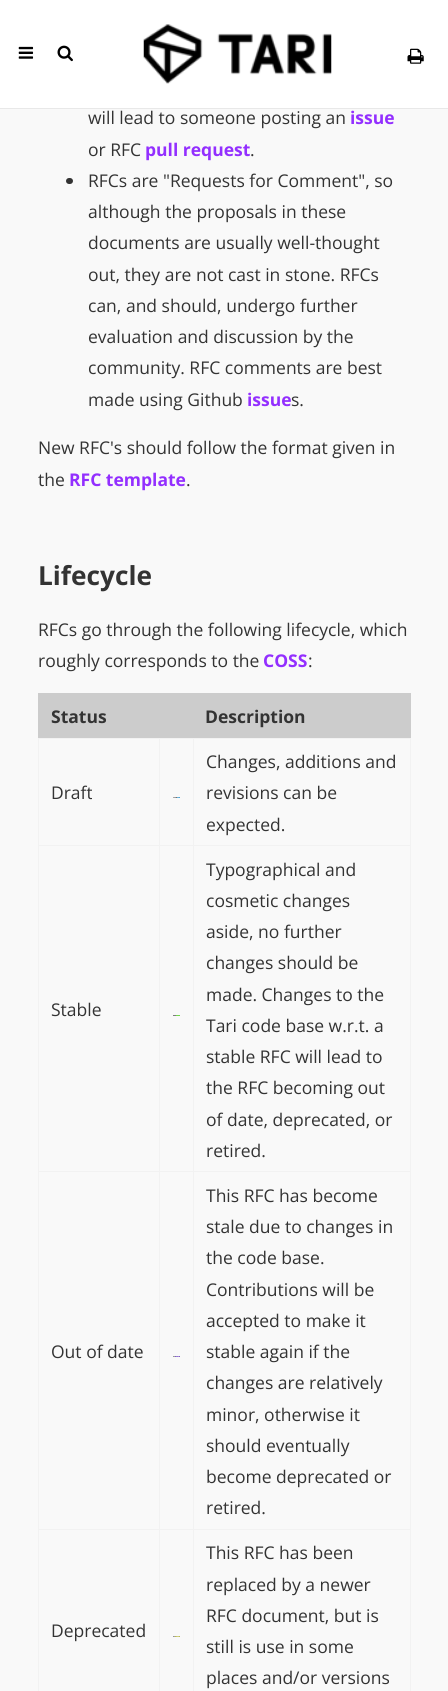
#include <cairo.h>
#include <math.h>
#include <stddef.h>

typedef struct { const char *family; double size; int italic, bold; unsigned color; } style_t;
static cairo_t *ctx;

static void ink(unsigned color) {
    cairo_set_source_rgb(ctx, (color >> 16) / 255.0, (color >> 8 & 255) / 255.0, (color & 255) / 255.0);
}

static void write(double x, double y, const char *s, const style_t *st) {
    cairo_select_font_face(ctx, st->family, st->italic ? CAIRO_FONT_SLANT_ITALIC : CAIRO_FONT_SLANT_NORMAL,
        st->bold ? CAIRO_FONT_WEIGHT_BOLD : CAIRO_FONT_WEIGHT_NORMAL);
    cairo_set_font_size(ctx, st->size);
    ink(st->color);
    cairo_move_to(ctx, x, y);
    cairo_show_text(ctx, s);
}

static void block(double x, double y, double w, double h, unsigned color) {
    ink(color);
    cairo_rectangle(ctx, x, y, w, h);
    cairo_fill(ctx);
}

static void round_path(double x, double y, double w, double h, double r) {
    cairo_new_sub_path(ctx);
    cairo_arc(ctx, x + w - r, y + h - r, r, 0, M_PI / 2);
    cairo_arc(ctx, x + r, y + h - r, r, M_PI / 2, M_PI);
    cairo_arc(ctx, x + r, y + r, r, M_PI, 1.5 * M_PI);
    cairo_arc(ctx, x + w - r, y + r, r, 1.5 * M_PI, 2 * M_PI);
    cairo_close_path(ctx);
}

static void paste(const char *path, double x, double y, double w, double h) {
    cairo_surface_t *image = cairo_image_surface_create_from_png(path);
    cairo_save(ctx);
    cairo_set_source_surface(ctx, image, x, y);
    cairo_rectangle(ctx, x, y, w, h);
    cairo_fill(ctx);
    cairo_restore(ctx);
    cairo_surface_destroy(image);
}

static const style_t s1 = {"Open Sans", 17.5, 0, 0, 0x333333};
static const style_t s2 = {"Open Sans", 17.5, 0, 1, 0x932fff};
static const style_t s3 = {"Open Sans", 26.25, 0, 1, 0x333333};
static const style_t s4 = {"Open Sans", 17.5, 0, 1, 0x333333};

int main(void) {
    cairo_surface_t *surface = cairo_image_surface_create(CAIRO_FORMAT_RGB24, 448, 1691);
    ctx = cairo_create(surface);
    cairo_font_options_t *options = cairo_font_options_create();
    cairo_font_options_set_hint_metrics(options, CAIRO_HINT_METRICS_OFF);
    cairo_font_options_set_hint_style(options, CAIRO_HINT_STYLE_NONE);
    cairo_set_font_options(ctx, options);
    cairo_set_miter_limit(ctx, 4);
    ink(0xf9f9f9);
    cairo_paint(ctx);
    block(0, 0, 448, 108, 0xffffff);
    block(0, 108, 448, 1, 0xe8e8e8);
    paste("pic1.png", 18, 46, 16, 13);
    paste("pic2.png", 57, 45, 16, 17);
    paste("pic3.png", 143, 24, 189, 60);
    paste("pic4.png", 407, 48, 17, 16);
    write(88, 124, "will lead to someone posting an", &s1);
    write(350, 124, "issue", &s2);
    write(88, 156, "or RFC", &s1);
    write(145, 156, "pull request", &s2);
    write(250, 156, ".", &s1);
    round_path(66, 178, 7, 6, 3);
    cairo_fill(ctx);
    write(88, 187, "RFCs are \"Requests for Comment\", so", &s1);
    write(88, 218, "although the proposals in these", &s1);
    write(88, 249, "documents are usually well-thought", &s1);
    write(88, 281, "out, they are not cast in stone. RFCs", &s1);
    write(88, 312, "can, and should, undergo further", &s1);
    write(88, 343, "evaluation and discussion by the", &s1);
    write(88, 374, "community. RFC comments are best", &s1);
    write(88, 406, "made using Github", &s1);
    write(247, 406, "issue", &s2);
    write(291, 406, "s.", &s1);
    write(38, 454, "New RFC's should follow the format given in", &s1);
    write(38, 486, "the", &s1);
    write(69, 486, "RFC template", &s2);
    write(186, 486, ".", &s1);
    write(38, 585, "Lifecycle", &s3);
    write(38, 636, "RFCs go through the following lifecycle, which", &s1);
    write(38, 667, "roughly corresponds to the", &s1);
    write(263, 667, "COSS", &s2);
    write(308, 667, ":", &s1);
    block(39, 694, 372, 44, 0xcccccc);
    block(38, 693, 373, 1, 0xcccccc);
    block(38, 693, 1, 46, 0xcccccc);
    write(51, 723, "Status", &s4);
    write(205, 723, "Description", &s4);
    block(193, 738, 218, 1, 0xf2f2f2);
    block(193, 845, 218, 1, 0xf2f2f2);
    block(193, 1171, 218, 1, 0xf2f2f2);
    block(193, 1529, 218, 1, 0xf2f2f2);
    block(193, 1529, 1, 162, 0xf2f2f2);
    block(159, 1529, 35, 1, 0xf2f2f2);
    block(193, 1171, 1, 359, 0xf2f2f2);
    block(159, 1171, 35, 1, 0xf2f2f2);
    block(193, 845, 1, 328, 0xf2f2f2);
    block(159, 845, 35, 1, 0xf2f2f2);
    block(193, 738, 1, 108, 0xf2f2f2);
    block(159, 738, 35, 1, 0xf2f2f2);
    block(159, 1529, 1, 162, 0xf2f2f2);
    block(38, 1529, 122, 1, 0xf2f2f2);
    block(159, 1171, 1, 359, 0xf2f2f2);
    block(38, 1171, 122, 1, 0xf2f2f2);
    block(159, 845, 1, 328, 0xf2f2f2);
    block(38, 845, 122, 1, 0xf2f2f2);
    block(159, 738, 1, 108, 0xf2f2f2);
    block(38, 738, 122, 1, 0xf2f2f2);
    block(38, 1529, 1, 162, 0xf2f2f2);
    block(38, 1171, 1, 359, 0xf2f2f2);
    block(38, 845, 1, 328, 0xf2f2f2);
    block(38, 738, 1, 108, 0xf2f2f2);
    write(51, 799, "Draft", &s1);
    paste("pic5.png", 173, 797, 7, 1);
    block(410, 1529, 1, 162, 0xf2f2f2);
    block(410, 1171, 1, 359, 0xf2f2f2);
    block(410, 845, 1, 328, 0xf2f2f2);
    block(410, 738, 1, 108, 0xf2f2f2);
    write(206, 768, "Changes, additions and", &s1);
    write(206, 799, "revisions can be", &s1);
    write(206, 831, "expected.", &s1);
    write(51, 1016, "Stable", &s1);
    paste("pic6.png", 173, 1015, 7, 1);
    write(206, 876, "Typographical and", &s1);
    write(206, 907, "cosmetic changes", &s1);
    write(206, 938, "aside, no further", &s1);
    write(206, 969, "changes should be", &s1);
    write(206, 1001, "made. Changes to the", &s1);
    write(206, 1032, "Tari code base w.r.t. a", &s1);
    write(206, 1063, "stable RFC will lead to", &s1);
    write(206, 1094, "the RFC becoming out", &s1);
    write(206, 1126, "of date, deprecated, or", &s1);
    write(206, 1157, "retired.", &s1);
    write(51, 1358, "Out of date", &s1);
    paste("pic7.png", 173, 1356, 7, 1);
    write(206, 1202, "This RFC has become", &s1);
    write(206, 1233, "stale due to changes in", &s1);
    write(206, 1264, "the code base.", &s1);
    write(206, 1296, "Contributions will be", &s1);
    write(206, 1327, "accepted to make it", &s1);
    write(206, 1358, "stable again if the", &s1);
    write(206, 1389, "changes are relatively", &s1);
    write(206, 1421, "minor, otherwise it", &s1);
    write(206, 1452, "should eventually", &s1);
    write(206, 1483, "become deprecated or", &s1);
    write(206, 1514, "retired.", &s1);
    write(51, 1637, "Deprecated", &s1);
    paste("pic8.png", 173, 1636, 7, 1);
    write(206, 1559, "This RFC has been", &s1);
    write(206, 1591, "replaced by a newer", &s1);
    write(206, 1622, "RFC document, but is", &s1);
    write(206, 1653, "still is use in some", &s1);
    write(206, 1684, "places and/or versions", &s1);
    cairo_surface_write_to_png(surface, "screenshot.png");
    cairo_font_options_destroy(options);
    cairo_destroy(ctx);
    cairo_surface_destroy(surface);
    return 0;
}
